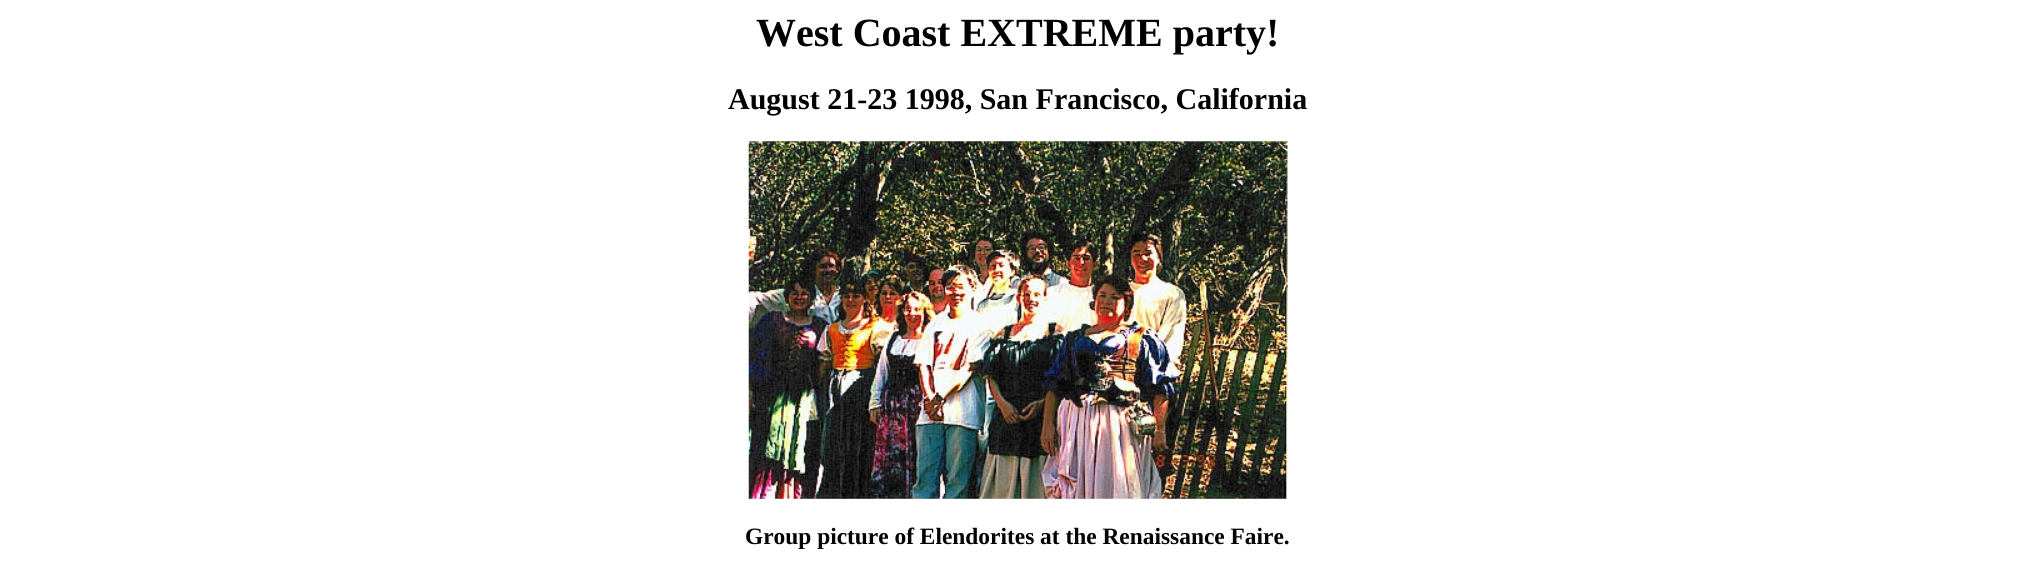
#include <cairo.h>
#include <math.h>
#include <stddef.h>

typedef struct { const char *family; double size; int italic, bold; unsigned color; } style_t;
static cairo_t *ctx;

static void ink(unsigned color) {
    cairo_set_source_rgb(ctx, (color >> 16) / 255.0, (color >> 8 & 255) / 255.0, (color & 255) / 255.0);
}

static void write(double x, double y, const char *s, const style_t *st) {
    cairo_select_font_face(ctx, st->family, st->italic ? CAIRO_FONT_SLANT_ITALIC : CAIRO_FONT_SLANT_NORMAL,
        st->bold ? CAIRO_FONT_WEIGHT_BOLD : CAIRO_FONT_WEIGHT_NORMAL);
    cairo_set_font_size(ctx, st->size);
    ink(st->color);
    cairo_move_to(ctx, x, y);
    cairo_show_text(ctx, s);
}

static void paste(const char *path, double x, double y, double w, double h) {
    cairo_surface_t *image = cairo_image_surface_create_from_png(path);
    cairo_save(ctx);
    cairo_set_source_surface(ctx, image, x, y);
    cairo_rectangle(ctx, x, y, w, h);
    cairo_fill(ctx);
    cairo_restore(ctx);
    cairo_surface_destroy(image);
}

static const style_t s1 = {"Liberation Serif", 40, 0, 1, 0x000000};
static const style_t s2 = {"Liberation Serif", 30, 0, 1, 0x000000};
static const style_t s3 = {"Liberation Serif", 23.4, 0, 1, 0x000000};

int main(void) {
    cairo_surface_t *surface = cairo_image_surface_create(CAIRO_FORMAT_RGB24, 2034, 567);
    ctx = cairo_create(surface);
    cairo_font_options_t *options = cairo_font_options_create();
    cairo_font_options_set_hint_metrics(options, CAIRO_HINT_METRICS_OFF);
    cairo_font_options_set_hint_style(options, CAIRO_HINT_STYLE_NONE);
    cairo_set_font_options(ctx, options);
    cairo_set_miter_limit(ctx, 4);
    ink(0xffffff);
    cairo_paint(ctx);
    write(756, 46, "West Coast EXTREME party!", &s1);
    write(728, 109, "August 21-23 1998, San Francisco, California", &s2);
    paste("pic1.png", 748, 141, 540, 358);
    write(745, 544, "Group picture of Elendorites at the Renaissance Faire.", &s3);
    cairo_surface_write_to_png(surface, "screenshot.png");
    cairo_font_options_destroy(options);
    cairo_destroy(ctx);
    cairo_surface_destroy(surface);
    return 0;
}
